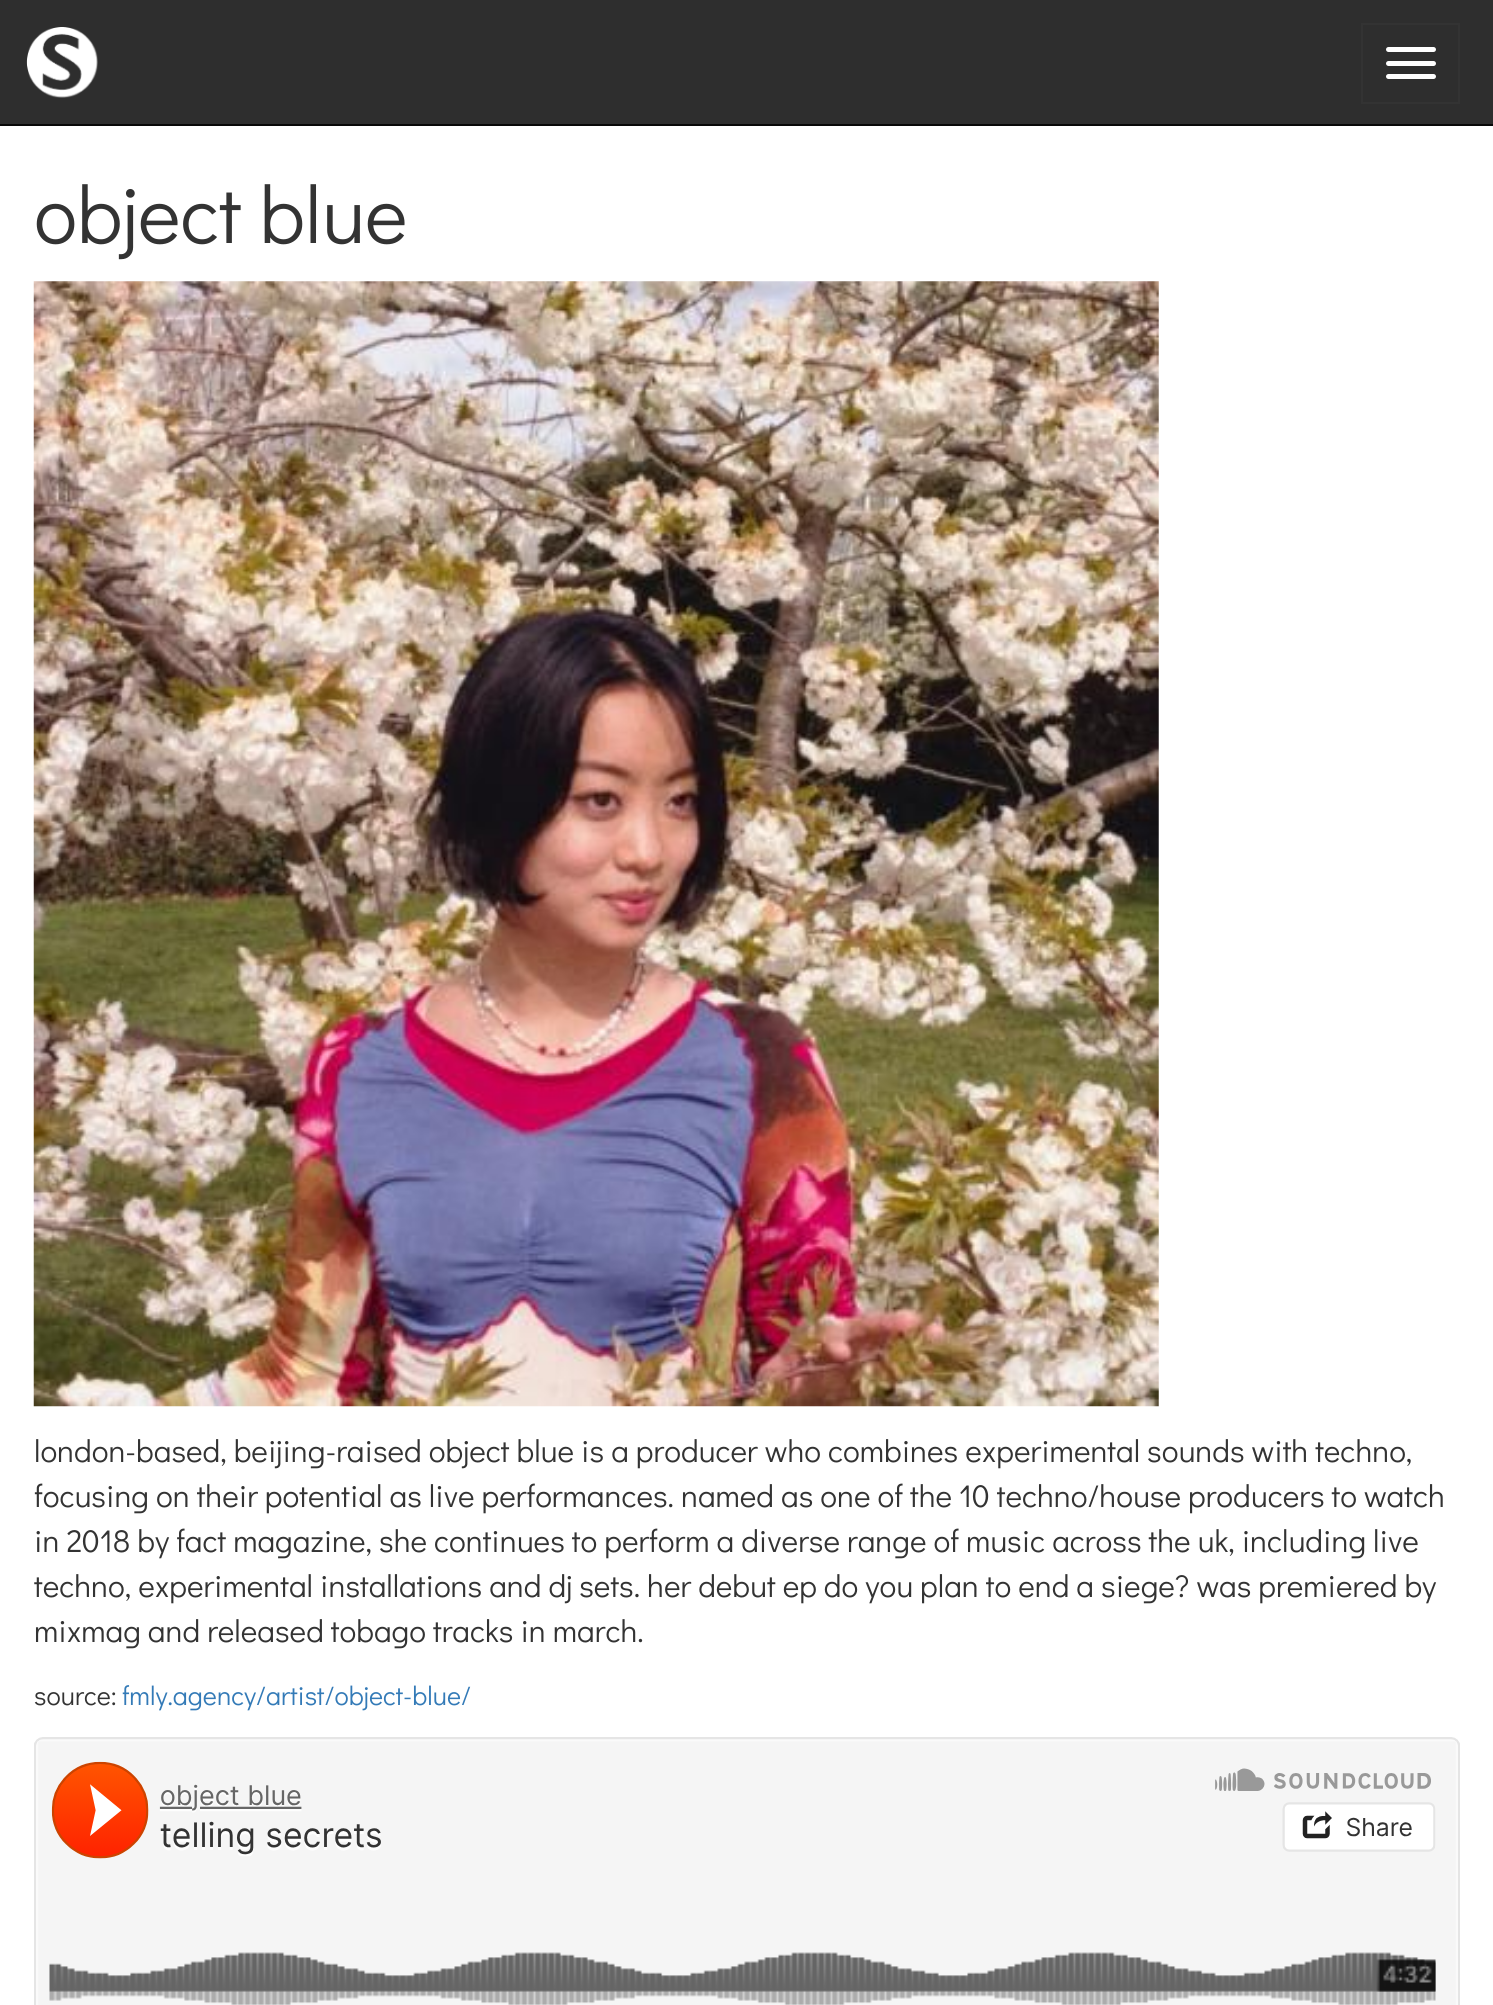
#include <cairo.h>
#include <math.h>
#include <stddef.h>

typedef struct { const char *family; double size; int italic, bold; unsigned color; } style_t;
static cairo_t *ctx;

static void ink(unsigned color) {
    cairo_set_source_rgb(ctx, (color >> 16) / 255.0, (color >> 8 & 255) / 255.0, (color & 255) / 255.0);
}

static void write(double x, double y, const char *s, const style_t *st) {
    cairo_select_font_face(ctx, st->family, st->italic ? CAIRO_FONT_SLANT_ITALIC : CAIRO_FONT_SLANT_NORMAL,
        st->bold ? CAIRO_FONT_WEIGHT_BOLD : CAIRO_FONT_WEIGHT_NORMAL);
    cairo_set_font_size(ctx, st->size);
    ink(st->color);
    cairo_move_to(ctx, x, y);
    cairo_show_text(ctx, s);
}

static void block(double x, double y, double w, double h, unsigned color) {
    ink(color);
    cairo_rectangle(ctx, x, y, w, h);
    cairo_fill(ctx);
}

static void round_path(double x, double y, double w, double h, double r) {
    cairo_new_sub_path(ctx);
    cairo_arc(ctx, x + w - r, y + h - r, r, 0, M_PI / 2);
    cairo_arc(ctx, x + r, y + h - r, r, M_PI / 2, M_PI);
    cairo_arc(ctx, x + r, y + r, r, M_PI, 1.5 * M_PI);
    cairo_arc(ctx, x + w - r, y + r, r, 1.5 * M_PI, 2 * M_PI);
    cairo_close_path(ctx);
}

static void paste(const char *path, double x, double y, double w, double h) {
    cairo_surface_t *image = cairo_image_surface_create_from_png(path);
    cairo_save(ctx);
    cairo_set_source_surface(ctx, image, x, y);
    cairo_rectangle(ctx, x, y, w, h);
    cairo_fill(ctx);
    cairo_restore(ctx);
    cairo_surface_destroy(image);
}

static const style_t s1 = {"Didact Gothic", 81, 0, 0, 0x333333};
static const style_t s2 = {"Didact Gothic", 31.5, 0, 0, 0x333333};
static const style_t s3 = {"Didact Gothic", 26.75, 0, 0, 0x333333};
static const style_t s4 = {"Didact Gothic", 26.75, 0, 0, 0x337ab7};

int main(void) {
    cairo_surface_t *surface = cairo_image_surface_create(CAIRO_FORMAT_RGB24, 1493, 2005);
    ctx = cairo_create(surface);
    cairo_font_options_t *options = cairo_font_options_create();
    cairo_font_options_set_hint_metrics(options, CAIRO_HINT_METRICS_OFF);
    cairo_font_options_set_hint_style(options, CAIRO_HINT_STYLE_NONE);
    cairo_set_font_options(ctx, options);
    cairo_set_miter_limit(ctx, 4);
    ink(0xffffff);
    cairo_paint(ctx);
    block(0, 0, 1493, 124, 0x2e2e2e);
    block(0, 124, 1493, 2, 0x080808);
    paste("pic1.png", 26, 27, 72, 71);
    cairo_rectangle(ctx, 1362, 24, 97, 79);
    ink(0x333333);
    cairo_stroke(ctx);
    ink(0xffffff);
    round_path(1386, 47, 50, 5, 2.5);
    cairo_fill(ctx);
    round_path(1386, 61, 50, 5, 2.5);
    cairo_fill(ctx);
    round_path(1386, 74, 50, 5, 2.5);
    cairo_fill(ctx);
    write(34, 243, "object blue", &s1);
    paste("pic2.png", 33, 281, 1126, 1126);
    write(34, 1462, "london-based, beijing-raised object blue is a producer who combines experimental sounds with techno,", &s2);
    write(34, 1507, "focusing on their potential as live performances. named as one of the 10 techno/house producers to watch", &s2);
    write(34, 1552, "in 2018 by fact magazine, she continues to perform a diverse range of music across the uk, including live", &s2);
    write(34, 1597, "techno, experimental installations and dj sets. her debut ep do you plan to end a siege? was premiered by", &s2);
    write(34, 1642, "mixmag and released tobago tracks in march.", &s2);
    write(34, 1705, "source:", &s3);
    write(122, 1705, "fmly.agency/artist/object-blue/", &s4);
    paste("pic3.png", 34, 1737, 1426, 268);
    cairo_surface_write_to_png(surface, "screenshot.png");
    cairo_font_options_destroy(options);
    cairo_destroy(ctx);
    cairo_surface_destroy(surface);
    return 0;
}
